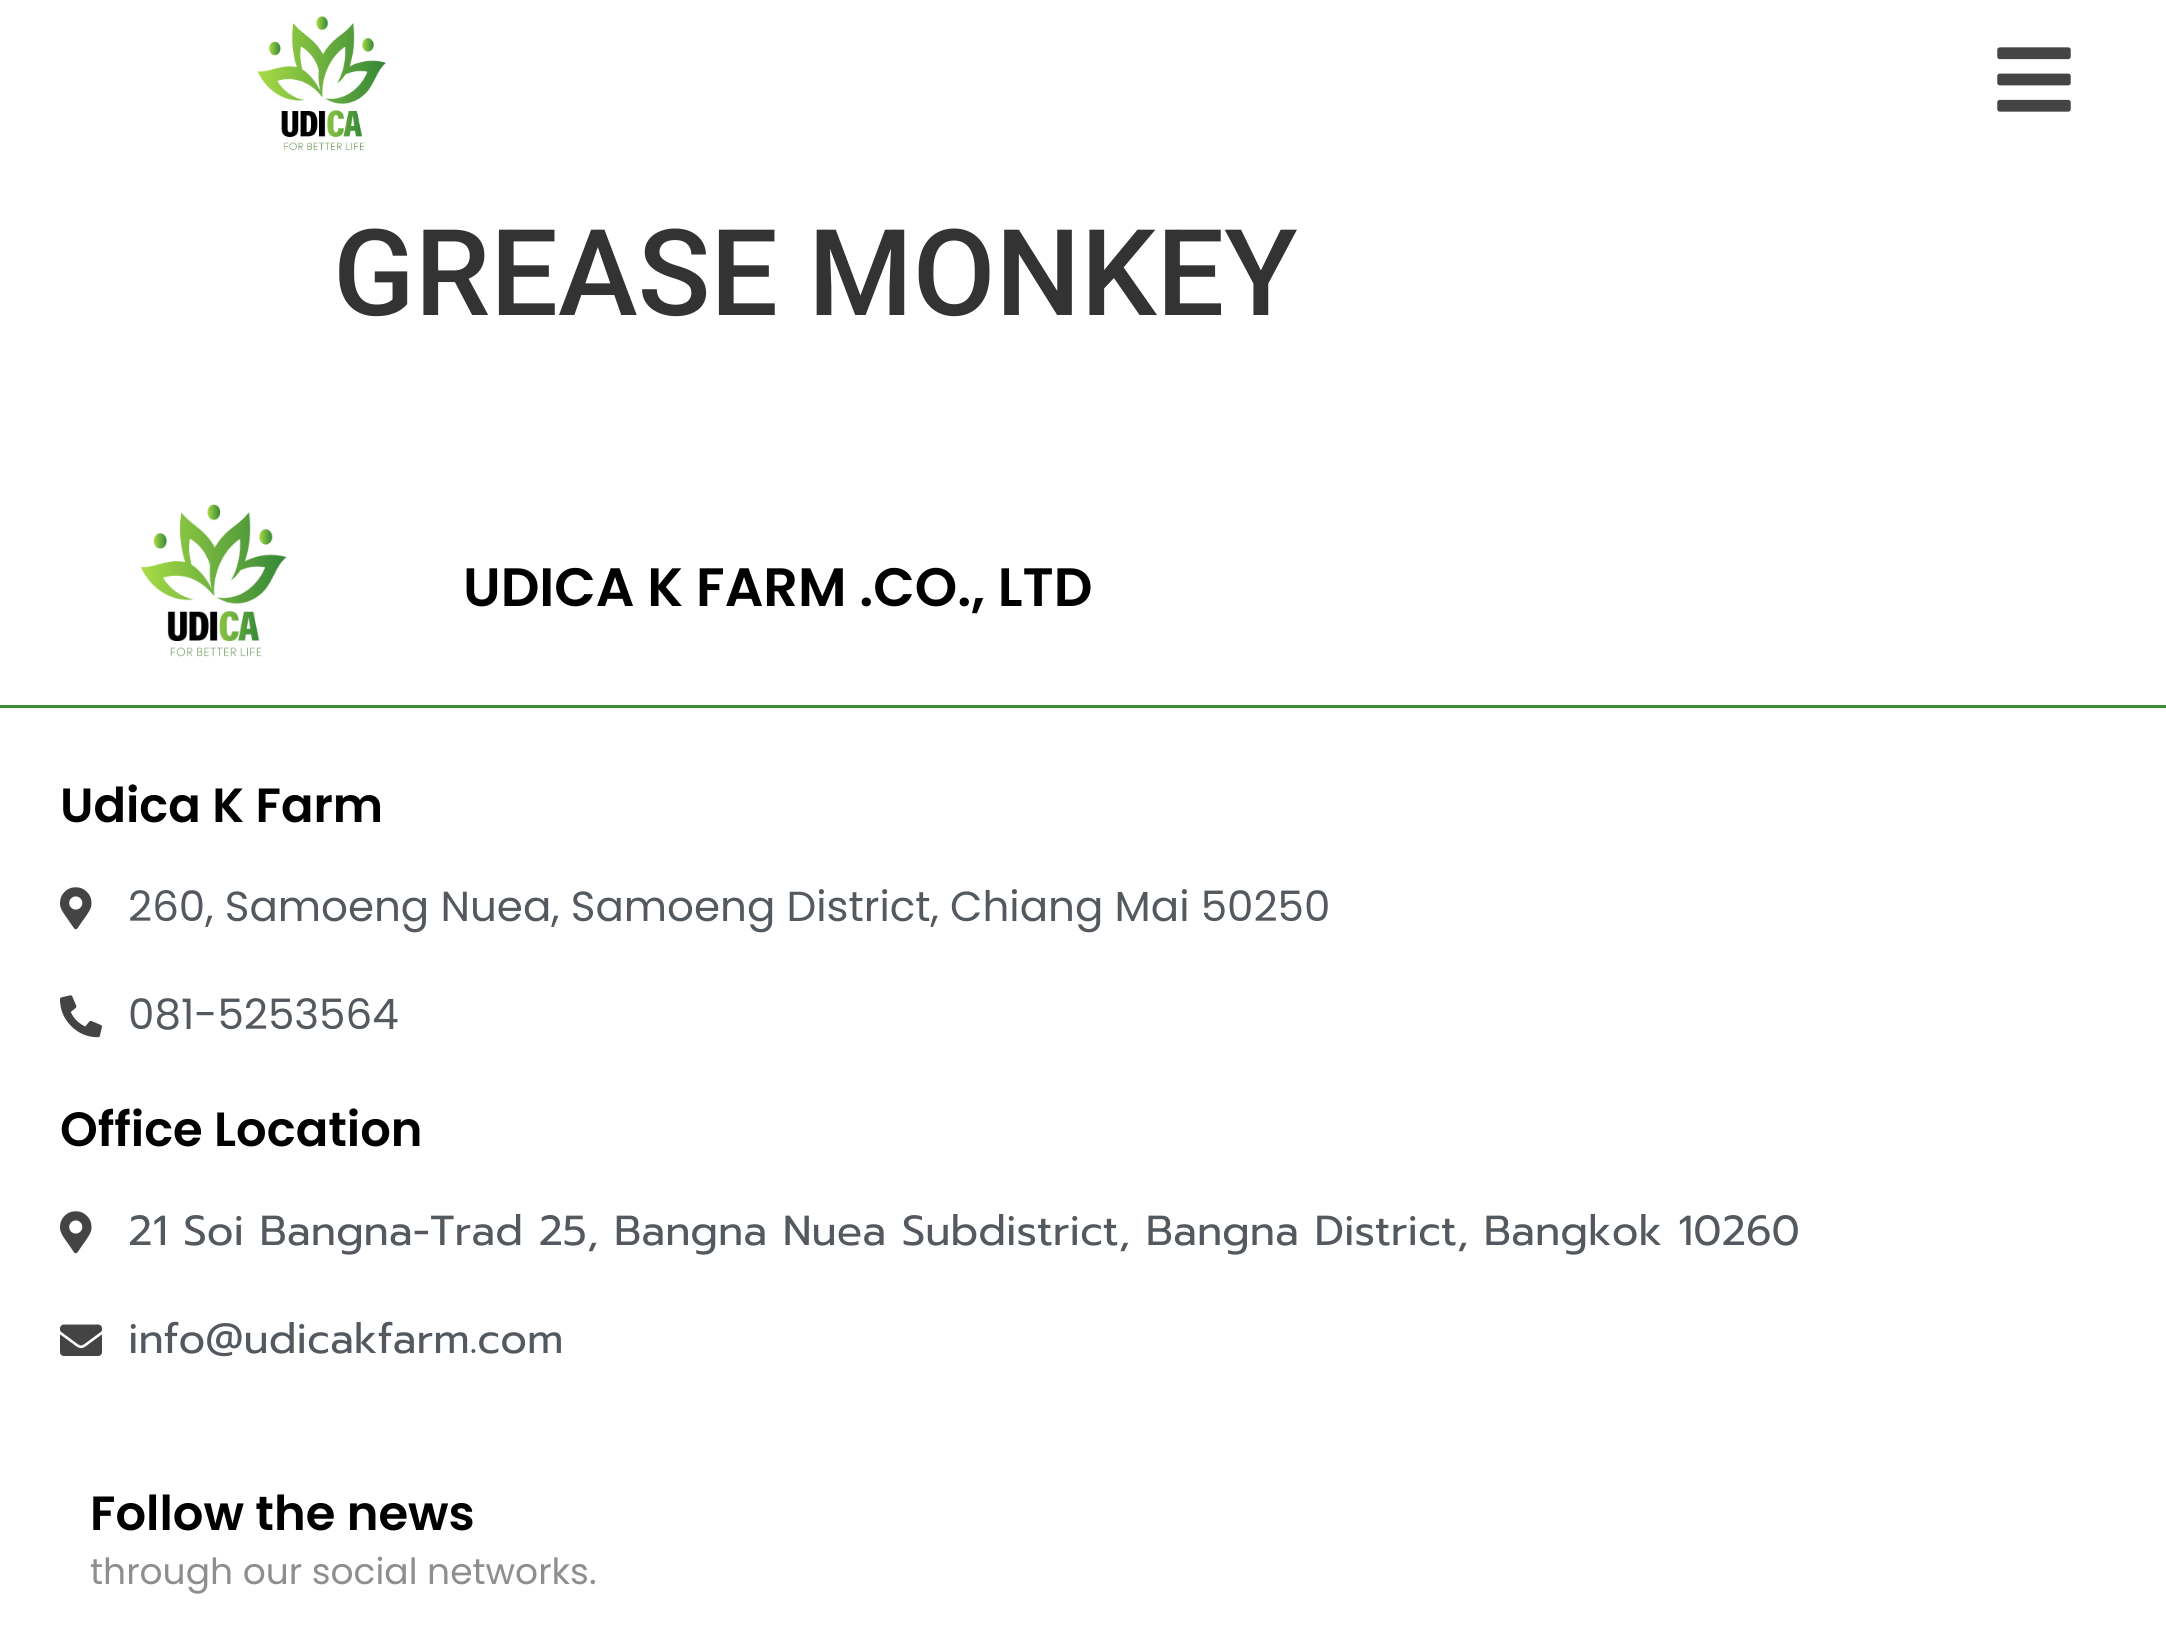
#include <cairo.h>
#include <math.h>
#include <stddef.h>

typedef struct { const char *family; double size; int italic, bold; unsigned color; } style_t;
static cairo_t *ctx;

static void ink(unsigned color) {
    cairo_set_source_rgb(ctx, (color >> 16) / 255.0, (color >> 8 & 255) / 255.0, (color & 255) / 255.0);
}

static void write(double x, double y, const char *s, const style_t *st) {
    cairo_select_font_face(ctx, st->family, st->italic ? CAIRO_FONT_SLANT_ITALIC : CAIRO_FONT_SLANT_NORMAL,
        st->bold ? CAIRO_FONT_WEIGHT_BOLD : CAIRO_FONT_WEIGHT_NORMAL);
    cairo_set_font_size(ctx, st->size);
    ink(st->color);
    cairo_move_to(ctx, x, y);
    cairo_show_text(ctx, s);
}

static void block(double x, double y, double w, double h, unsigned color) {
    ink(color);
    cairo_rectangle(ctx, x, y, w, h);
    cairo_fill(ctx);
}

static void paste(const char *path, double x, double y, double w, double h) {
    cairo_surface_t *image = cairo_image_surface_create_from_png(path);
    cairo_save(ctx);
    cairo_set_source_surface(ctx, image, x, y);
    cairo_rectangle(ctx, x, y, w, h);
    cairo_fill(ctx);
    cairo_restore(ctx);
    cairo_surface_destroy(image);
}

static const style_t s1 = {"Roboto Medium", 120, 0, 0, 0x333333};
static const style_t s2 = {"Poppins SemiBold", 54, 0, 0, 0x000000};
static const style_t s3 = {"Poppins SemiBold", 48, 0, 0, 0x000000};
static const style_t s4 = {"Poppins", 42, 0, 0, 0x54595f};
static const style_t s5 = {"Prompt", 42, 0, 0, 0x54595f};
static const style_t s6 = {"Poppins", 36, 0, 0, 0x8e8e8e};

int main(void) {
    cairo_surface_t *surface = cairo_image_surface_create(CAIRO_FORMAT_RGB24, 2166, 1626);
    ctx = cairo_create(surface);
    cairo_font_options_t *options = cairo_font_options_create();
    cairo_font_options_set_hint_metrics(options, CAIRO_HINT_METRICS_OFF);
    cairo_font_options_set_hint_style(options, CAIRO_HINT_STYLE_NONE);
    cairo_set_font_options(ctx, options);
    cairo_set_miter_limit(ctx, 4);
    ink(0xffffff);
    cairo_paint(ctx);
    paste("pic1.png", 257, 16, 129, 135);
    paste("pic2.png", 1997, 47, 74, 65);
    write(333, 315, "GREASE MONKEY", &s1);
    paste("pic3.png", 140, 504, 147, 153);
    write(463, 606, "UDICA K FARM .CO., LTD", &s2);
    block(0, 705, 2166, 3, 0x3c8c38);
    write(60, 822, "Udica K Farm", &s3);
    paste("pic4.png", 60, 887, 32, 43);
    write(128, 921, "260, Samoeng Nuea, Samoeng District, Chiang Mai 50250", &s4);
    paste("pic5.png", 60, 995, 42, 43);
    write(128, 1029, "081-5253564", &s4);
    write(60, 1146, "Office Location", &s3);
    paste("pic4.png", 60, 1211, 32, 43);
    write(128, 1245, "21 Soi Bangna-Trad 25, Bangna Nuea Subdistrict, Bangna District, Bangkok 10260", &s5);
    paste("pic6.png", 60, 1324, 42, 32);
    write(128, 1353, "info@udicakfarm.com", &s5);
    write(90, 1530, "Follow the news", &s3);
    write(90, 1584, "through our social networks.", &s6);
    cairo_surface_write_to_png(surface, "screenshot.png");
    cairo_font_options_destroy(options);
    cairo_destroy(ctx);
    cairo_surface_destroy(surface);
    return 0;
}
